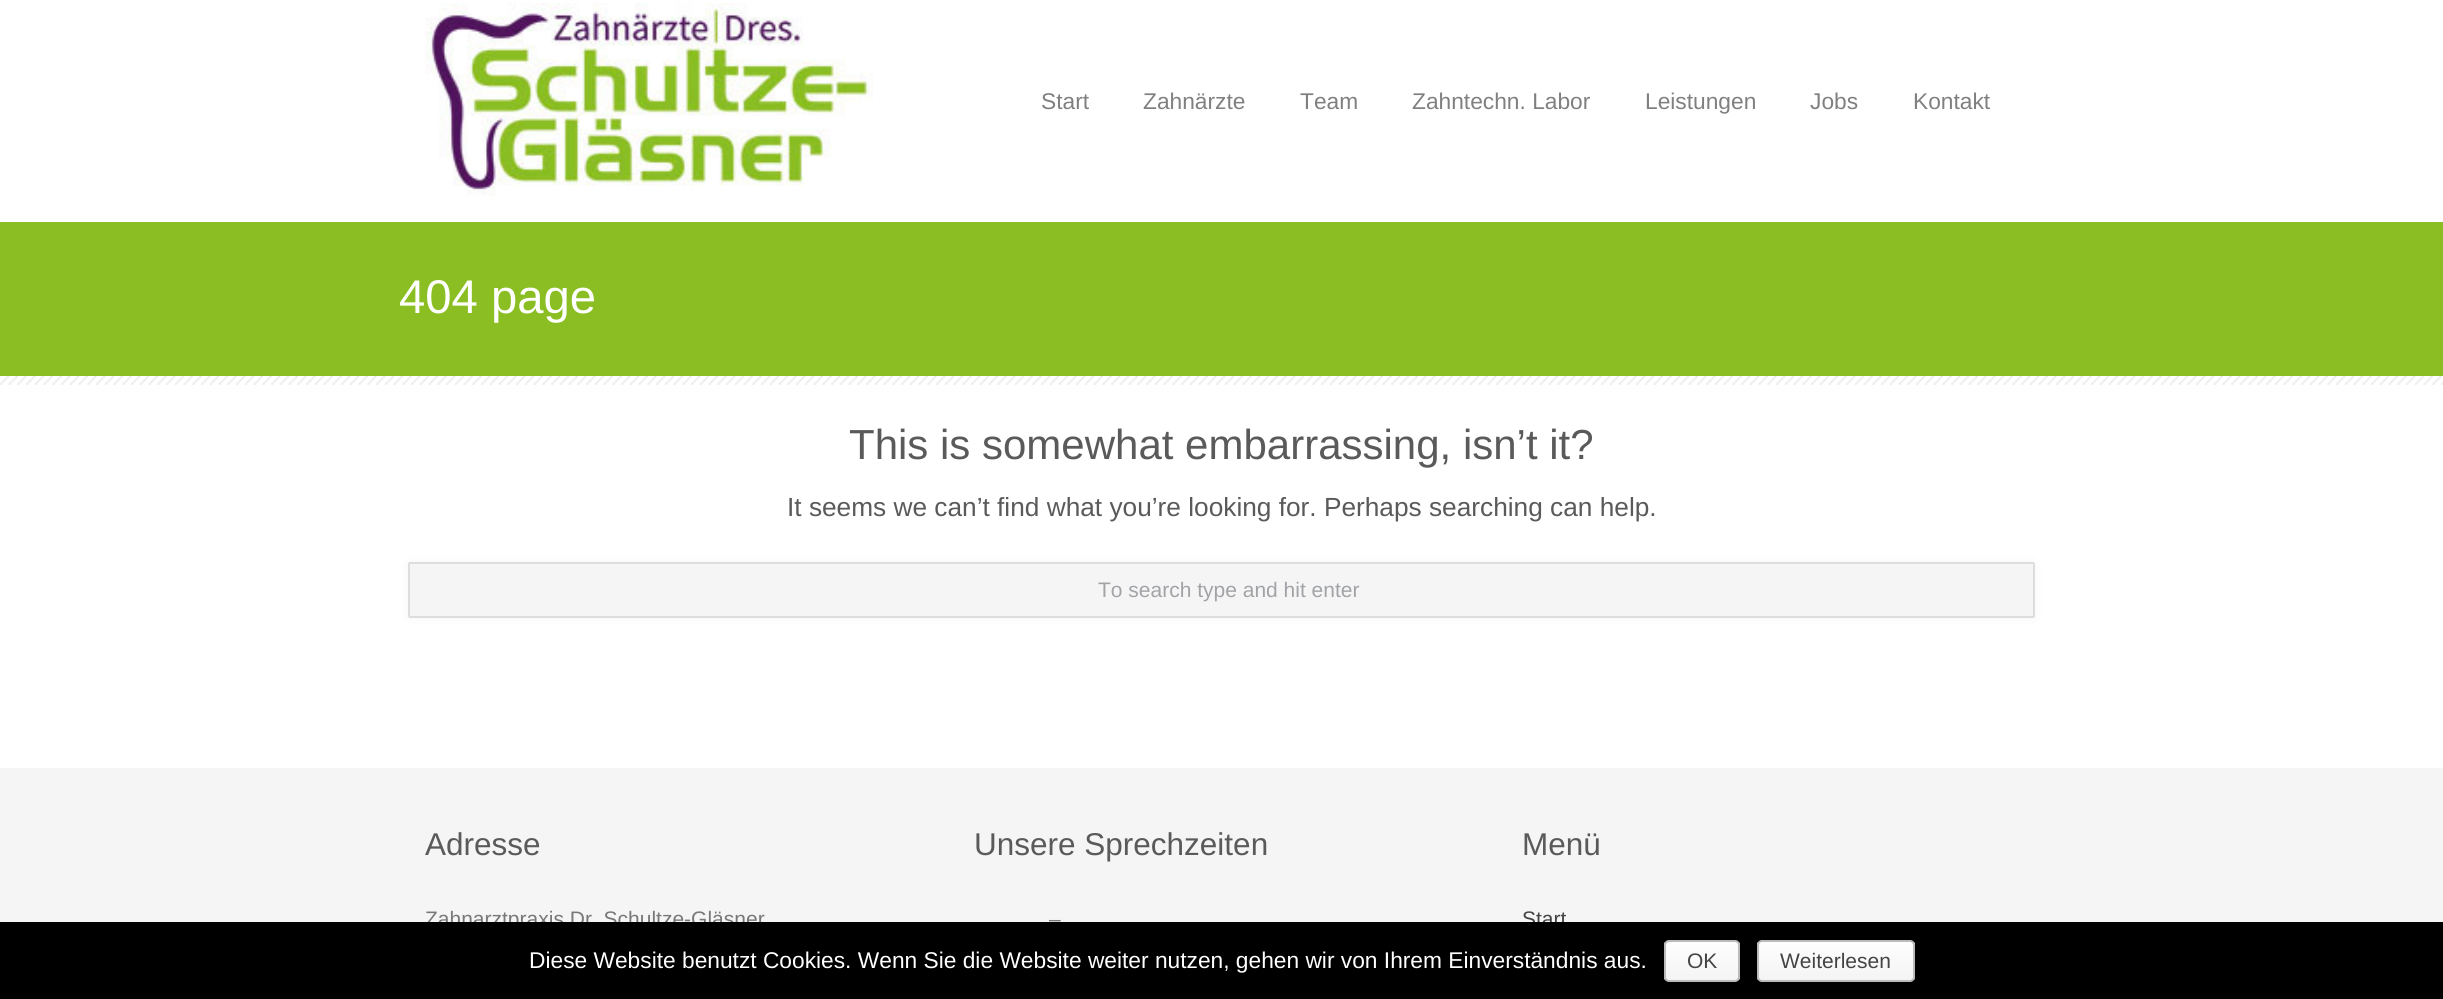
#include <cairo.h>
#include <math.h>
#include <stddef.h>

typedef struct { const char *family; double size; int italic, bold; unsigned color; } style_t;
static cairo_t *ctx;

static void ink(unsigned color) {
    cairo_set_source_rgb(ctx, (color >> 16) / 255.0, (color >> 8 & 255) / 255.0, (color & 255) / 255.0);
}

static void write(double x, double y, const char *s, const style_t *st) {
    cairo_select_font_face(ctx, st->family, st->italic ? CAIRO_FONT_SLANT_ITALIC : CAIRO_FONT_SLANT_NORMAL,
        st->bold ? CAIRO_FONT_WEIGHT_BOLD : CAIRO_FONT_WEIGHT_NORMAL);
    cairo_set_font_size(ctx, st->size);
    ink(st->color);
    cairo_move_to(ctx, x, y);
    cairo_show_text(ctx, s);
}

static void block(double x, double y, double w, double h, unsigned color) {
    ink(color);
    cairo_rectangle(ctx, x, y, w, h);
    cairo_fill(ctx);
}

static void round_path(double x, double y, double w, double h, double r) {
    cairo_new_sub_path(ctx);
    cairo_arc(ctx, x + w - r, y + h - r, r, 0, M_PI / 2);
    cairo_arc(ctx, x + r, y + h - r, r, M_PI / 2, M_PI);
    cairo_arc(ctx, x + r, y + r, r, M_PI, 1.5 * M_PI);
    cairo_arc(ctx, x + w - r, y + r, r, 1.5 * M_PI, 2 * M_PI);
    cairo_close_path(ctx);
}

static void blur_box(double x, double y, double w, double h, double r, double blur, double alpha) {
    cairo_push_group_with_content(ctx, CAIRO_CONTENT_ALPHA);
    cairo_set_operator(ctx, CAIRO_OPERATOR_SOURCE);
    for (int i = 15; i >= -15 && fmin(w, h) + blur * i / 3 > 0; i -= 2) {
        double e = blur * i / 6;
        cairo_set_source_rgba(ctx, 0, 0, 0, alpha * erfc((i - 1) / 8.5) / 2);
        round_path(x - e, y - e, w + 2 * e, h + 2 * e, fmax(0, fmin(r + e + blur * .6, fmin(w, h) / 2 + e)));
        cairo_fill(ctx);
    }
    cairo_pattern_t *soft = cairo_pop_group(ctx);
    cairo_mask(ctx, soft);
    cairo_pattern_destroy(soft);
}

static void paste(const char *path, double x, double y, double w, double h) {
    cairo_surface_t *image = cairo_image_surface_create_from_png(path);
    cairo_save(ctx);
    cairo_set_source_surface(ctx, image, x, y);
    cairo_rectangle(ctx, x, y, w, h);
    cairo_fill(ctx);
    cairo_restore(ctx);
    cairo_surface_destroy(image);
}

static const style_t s1 = {"Liberation Sans", 22.75, 0, 0, 0x808080};
static const style_t s2 = {"Liberation Sans", 47.25, 0, 0, 0xffffff};
static const style_t s3 = {"Liberation Sans", 42, 0, 0, 0x5a5a5a};
static const style_t s4 = {"Liberation Sans", 26.25, 0, 0, 0x5a5a5a};
static const style_t s5 = {"Liberation Sans", 21, 0, 0, 0xa1a3a6};
static const style_t s6 = {"Liberation Sans", 31.5, 0, 0, 0x5a5a5a};
static const style_t s7 = {"Liberation Sans", 21, 0, 0, 0x787878};
static const style_t s8 = {"Liberation Sans", 21, 0, 0, 0x444444};
static const style_t s9 = {"Liberation Sans", 22.75, 0, 0, 0xffffff};

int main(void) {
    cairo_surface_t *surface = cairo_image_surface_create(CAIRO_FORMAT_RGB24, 2443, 999);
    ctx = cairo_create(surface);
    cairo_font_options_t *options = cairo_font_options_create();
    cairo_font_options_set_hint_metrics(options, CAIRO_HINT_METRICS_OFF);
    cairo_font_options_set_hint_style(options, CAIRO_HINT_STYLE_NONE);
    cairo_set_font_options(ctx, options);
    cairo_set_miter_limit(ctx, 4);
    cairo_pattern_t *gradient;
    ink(0xffffff);
    cairo_paint(ctx);
    paste("pic1.png", 425, 3, 448, 193);
    write(1041, 109, "Start", &s1);
    write(1143, 109, "Zahnärzte", &s1);
    write(1300, 109, "Team", &s1);
    write(1412, 109, "Zahntechn. Labor", &s1);
    write(1645, 109, "Leistungen", &s1);
    write(1810, 109, "Jobs", &s1);
    write(1913, 109, "Kontakt", &s1);
    block(0, 222, 2443, 154, 0x8abe23);
    write(399, 313, "404 page", &s2);
    paste("pic2.png", 0, 376, 2443, 9);
    write(849, 459, "This is somewhat embarrassing, isn’t it?", &s3);
    write(787, 516, "It seems we can’t find what you’re looking for. Perhaps searching can help.", &s4);
    ink(0x323232);
    blur_box(408, 562, 1627, 56, 2, 4.5, 0.05);
    ink(0xf5f5f5);
    round_path(409, 563, 1625, 54, 1);
    cairo_fill_preserve(ctx);
    ink(0xdddddd);
    cairo_stroke(ctx);
    write(1098, 597, "To search type and hit enter", &s5);
    block(0, 768, 2443, 154, 0xf5f5f5);
    write(425, 855, "Adresse", &s6);
    write(425, 926, "Zahnarztpraxis Dr. Schultze-Gläsner", &s7);
    write(974, 855, "Unsere Sprechzeiten", &s6);
    write(1049, 926, "–", &s7);
    write(1522, 855, "Menü", &s6);
    write(1522, 926, "Start", &s8);
    block(0, 922, 2443, 77, 0x000000);
    write(529, 968, "Diese Website benutzt Cookies. Wenn Sie die Website weiter nutzen, gehen wir von Ihrem Einverständnis aus.", &s9);
    cairo_save(ctx);
    round_path(1664, 940, 76, 42, 5);
    cairo_clip(ctx);
    gradient = cairo_pattern_create_linear(1702, 942, 1702, 980);
    cairo_pattern_add_color_stop_rgba(gradient, 0, 0.996, 0.996, 0.996, 1);
    cairo_pattern_add_color_stop_rgba(gradient, 1, 0.957, 0.957, 0.957, 1);
    cairo_set_source(ctx, gradient);
    cairo_pattern_destroy(gradient);
    cairo_rectangle(ctx, 1664, 942, 76, 38);
    cairo_fill(ctx);
    cairo_restore(ctx);
    round_path(1665, 941, 74, 40, 4);
    ink(0xbbbbbb);
    cairo_stroke(ctx);
    write(1687, 968, "OK", &s8);
    cairo_save(ctx);
    round_path(1757, 940, 158, 42, 5);
    cairo_clip(ctx);
    gradient = cairo_pattern_create_linear(1836, 942, 1836, 980);
    cairo_pattern_add_color_stop_rgba(gradient, 0, 0.996, 0.996, 0.996, 1);
    cairo_pattern_add_color_stop_rgba(gradient, 1, 0.957, 0.957, 0.957, 1);
    cairo_set_source(ctx, gradient);
    cairo_pattern_destroy(gradient);
    cairo_rectangle(ctx, 1757, 942, 158, 38);
    cairo_fill(ctx);
    cairo_restore(ctx);
    round_path(1758, 941, 156, 40, 4);
    ink(0xbbbbbb);
    cairo_stroke(ctx);
    write(1780, 968, "Weiterlesen", &s8);
    cairo_surface_write_to_png(surface, "screenshot.png");
    cairo_font_options_destroy(options);
    cairo_destroy(ctx);
    cairo_surface_destroy(surface);
    return 0;
}
